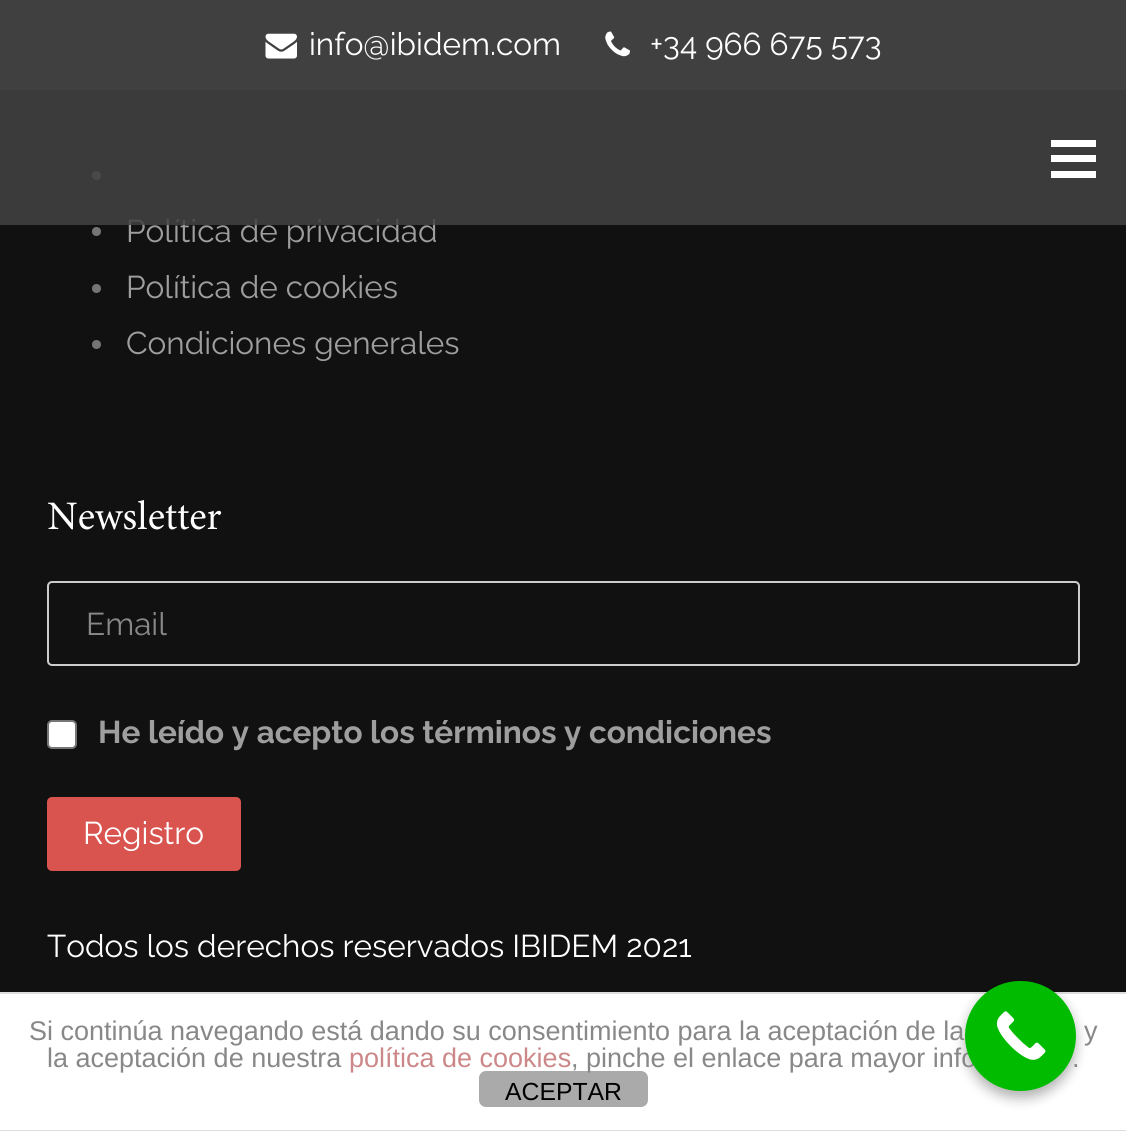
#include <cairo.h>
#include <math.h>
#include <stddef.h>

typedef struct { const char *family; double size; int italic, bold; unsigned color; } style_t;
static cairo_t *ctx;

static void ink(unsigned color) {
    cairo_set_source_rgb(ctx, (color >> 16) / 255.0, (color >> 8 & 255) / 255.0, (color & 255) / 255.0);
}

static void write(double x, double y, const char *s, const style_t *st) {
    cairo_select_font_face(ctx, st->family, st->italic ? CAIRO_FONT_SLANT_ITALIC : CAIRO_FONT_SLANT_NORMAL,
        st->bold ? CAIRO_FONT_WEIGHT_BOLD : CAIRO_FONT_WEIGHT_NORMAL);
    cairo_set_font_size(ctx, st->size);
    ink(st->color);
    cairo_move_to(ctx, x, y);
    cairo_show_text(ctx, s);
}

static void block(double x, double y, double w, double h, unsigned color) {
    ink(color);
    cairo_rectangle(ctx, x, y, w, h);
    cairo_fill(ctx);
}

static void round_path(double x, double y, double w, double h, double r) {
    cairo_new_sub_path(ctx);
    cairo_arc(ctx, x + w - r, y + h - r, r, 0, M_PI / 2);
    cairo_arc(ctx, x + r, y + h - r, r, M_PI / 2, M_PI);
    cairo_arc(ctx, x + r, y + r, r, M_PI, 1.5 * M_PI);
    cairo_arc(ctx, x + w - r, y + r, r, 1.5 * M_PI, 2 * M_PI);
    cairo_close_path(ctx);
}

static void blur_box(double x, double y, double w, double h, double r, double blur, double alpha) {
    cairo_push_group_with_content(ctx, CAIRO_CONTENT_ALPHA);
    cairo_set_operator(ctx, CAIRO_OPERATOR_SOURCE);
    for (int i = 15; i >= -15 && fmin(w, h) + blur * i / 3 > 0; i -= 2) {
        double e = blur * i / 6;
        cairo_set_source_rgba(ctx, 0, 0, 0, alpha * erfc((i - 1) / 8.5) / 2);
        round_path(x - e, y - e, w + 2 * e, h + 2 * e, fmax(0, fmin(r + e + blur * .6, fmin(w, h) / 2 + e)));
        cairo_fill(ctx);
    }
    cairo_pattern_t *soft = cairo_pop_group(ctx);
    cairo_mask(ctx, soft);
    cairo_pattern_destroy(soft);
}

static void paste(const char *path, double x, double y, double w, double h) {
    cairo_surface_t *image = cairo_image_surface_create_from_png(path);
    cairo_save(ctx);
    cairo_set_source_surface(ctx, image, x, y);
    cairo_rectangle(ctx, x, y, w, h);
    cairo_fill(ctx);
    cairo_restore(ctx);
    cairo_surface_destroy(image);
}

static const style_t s1 = {"Raleway", 31.5, 0, 0, 0xffffff};
static const style_t s2 = {"Raleway", 31.5, 0, 0, 0x9e9e9e};
static const style_t s3 = {"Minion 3", 40.5, 0, 0, 0xffffff};
static const style_t s4 = {"Raleway", 31.5, 0, 0, 0x888888};
static const style_t s5 = {"Raleway", 31.5, 0, 1, 0x9e9e9e};
static const style_t s6 = {"Liberation Sans", 27, 0, 0, 0x888888};
static const style_t s7 = {"Liberation Sans", 27, 0, 0, 0xcc8888};
static const style_t s8 = {"Liberation Sans", 24.75, 0, 0, 0x000000};

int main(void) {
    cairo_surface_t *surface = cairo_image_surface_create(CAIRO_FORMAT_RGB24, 1126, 1131);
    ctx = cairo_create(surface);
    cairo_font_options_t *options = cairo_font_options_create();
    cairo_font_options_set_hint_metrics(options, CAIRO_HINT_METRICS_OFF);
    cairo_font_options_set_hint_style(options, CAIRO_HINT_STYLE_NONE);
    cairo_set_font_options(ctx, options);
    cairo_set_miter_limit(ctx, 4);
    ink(0x111111);
    cairo_paint(ctx);
    block(0, 0, 1126, 90, 0x404040);
    paste("pic1.png", 265, 33, 32, 26);
    write(309, 55, "info@ibidem.com", &s1);
    paste("pic2.png", 605, 31, 25, 26);
    write(650, 55, "+34 966 675 573", &s1);
    ink(0x757575);
    cairo_new_path(ctx);
    cairo_arc(ctx, 96.5, 175.5, 4.5, 0, 2 * M_PI);
    cairo_fill(ctx);
    write(126, 242, "Política de privacidad", &s2);
    cairo_set_source_rgba(ctx, 0.259, 0.259, 0.259, 0.85);
    cairo_rectangle(ctx, 0, 90, 1126, 135);
    cairo_fill(ctx);
    block(1051, 155, 45, 7, 0xffffff);
    block(1051, 140, 45, 7, 0xffffff);
    block(1051, 171, 45, 7, 0xffffff);
    ink(0x757575);
    cairo_arc(ctx, 96.5, 231.5, 4.5, 0, 2 * M_PI);
    cairo_fill(ctx);
    cairo_arc(ctx, 96.5, 288.5, 4.5, 0, 2 * M_PI);
    cairo_fill(ctx);
    write(126, 298, "Política de cookies", &s2);
    ink(0x757575);
    cairo_new_path(ctx);
    cairo_arc(ctx, 96.5, 344.5, 4.5, 0, 2 * M_PI);
    cairo_fill(ctx);
    write(126, 354, "Condiciones generales", &s2);
    write(47, 529, "Newsletter", &s3);
    round_path(48, 582, 1031, 83, 4);
    ink(0xcccccc);
    cairo_stroke(ctx);
    write(86, 635, "Email", &s4);
    ink(0xffffff);
    round_path(48, 721, 28, 27, 4);
    cairo_fill_preserve(ctx);
    ink(0x767676);
    cairo_stroke(ctx);
    write(98, 743, "He leído y acepto los términos y condiciones", &s5);
    ink(0xd9534f);
    round_path(47, 797, 194, 74, 5);
    cairo_fill(ctx);
    write(83, 844, "Registro", &s1);
    write(47, 957, "Todos los derechos reservados IBIDEM 2021", &s1);
    block(0, 994, 1126, 136, 0xffffff);
    block(0, 992, 1126, 2, 0xdddddd);
    ink(0x000000);
    blur_box(965, 986, 111, 112, 55.5, 6, 0.3);
    ink(0xaaaaaa);
    round_path(479, 1071, 169, 36, 7);
    cairo_fill(ctx);
    write(571, 1067, ", pinche el enlace para mayor info", &s6);
    write(1072, 1067, ".", &s6);
    ink(0x00bb00);
    round_path(965, 981, 111, 110, 55);
    cairo_fill(ctx);
    paste("pic3.png", 996, 1011, 50, 49);
    block(0, 1130, 1126, 1, 0xdddddd);
    write(29, 1040, "Si continúa navegando está dando su consentimiento para la aceptación de la", &s6);
    write(1084, 1040, "y", &s6);
    write(47, 1067, "la aceptación de nuestra", &s6);
    write(349, 1067, "política de cookies", &s7);
    write(505, 1100, "ACEPTAR", &s8);
    cairo_surface_write_to_png(surface, "screenshot.png");
    cairo_font_options_destroy(options);
    cairo_destroy(ctx);
    cairo_surface_destroy(surface);
    return 0;
}
